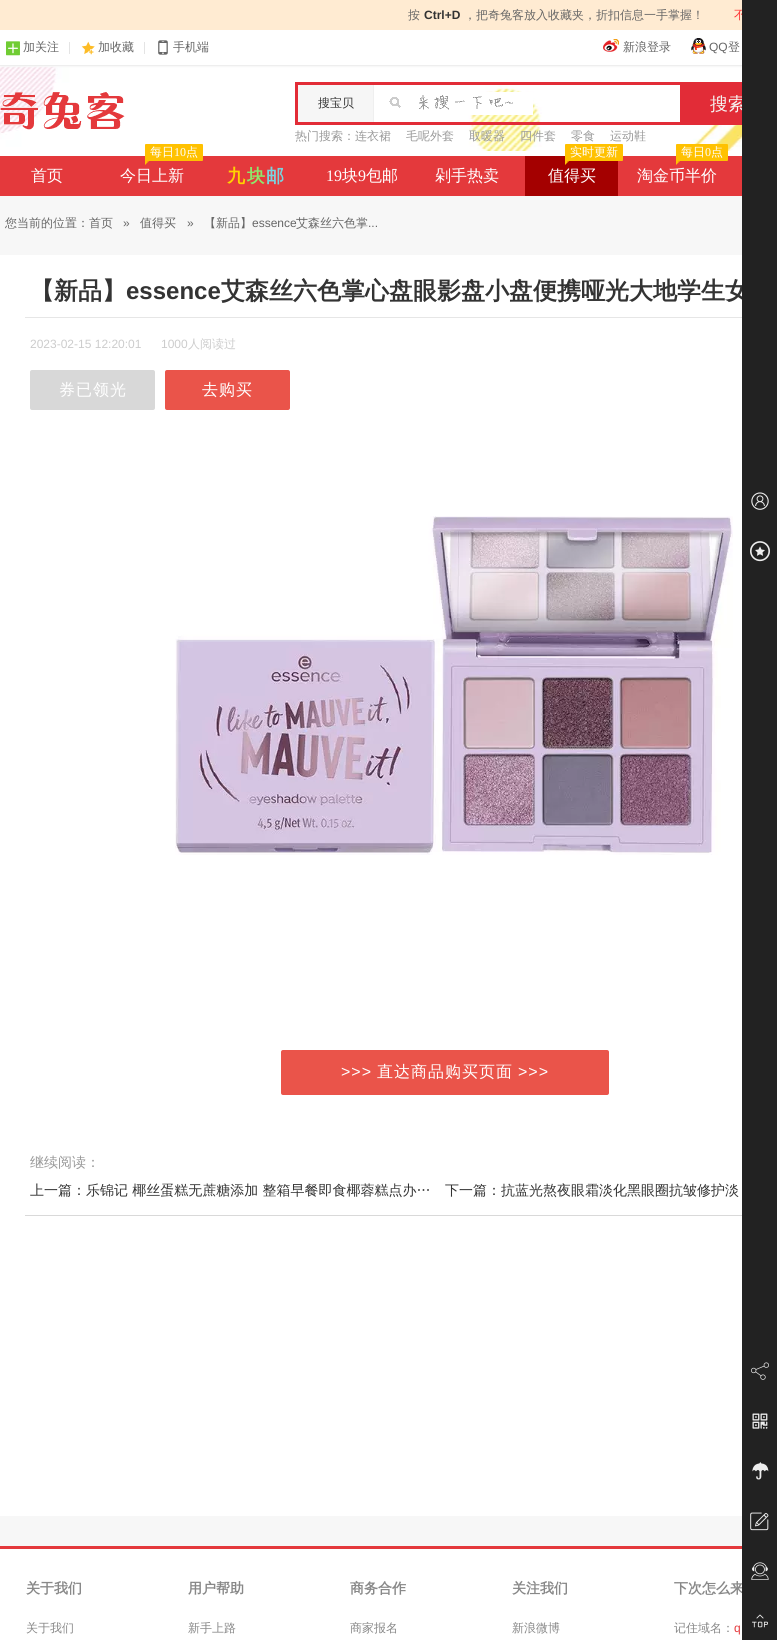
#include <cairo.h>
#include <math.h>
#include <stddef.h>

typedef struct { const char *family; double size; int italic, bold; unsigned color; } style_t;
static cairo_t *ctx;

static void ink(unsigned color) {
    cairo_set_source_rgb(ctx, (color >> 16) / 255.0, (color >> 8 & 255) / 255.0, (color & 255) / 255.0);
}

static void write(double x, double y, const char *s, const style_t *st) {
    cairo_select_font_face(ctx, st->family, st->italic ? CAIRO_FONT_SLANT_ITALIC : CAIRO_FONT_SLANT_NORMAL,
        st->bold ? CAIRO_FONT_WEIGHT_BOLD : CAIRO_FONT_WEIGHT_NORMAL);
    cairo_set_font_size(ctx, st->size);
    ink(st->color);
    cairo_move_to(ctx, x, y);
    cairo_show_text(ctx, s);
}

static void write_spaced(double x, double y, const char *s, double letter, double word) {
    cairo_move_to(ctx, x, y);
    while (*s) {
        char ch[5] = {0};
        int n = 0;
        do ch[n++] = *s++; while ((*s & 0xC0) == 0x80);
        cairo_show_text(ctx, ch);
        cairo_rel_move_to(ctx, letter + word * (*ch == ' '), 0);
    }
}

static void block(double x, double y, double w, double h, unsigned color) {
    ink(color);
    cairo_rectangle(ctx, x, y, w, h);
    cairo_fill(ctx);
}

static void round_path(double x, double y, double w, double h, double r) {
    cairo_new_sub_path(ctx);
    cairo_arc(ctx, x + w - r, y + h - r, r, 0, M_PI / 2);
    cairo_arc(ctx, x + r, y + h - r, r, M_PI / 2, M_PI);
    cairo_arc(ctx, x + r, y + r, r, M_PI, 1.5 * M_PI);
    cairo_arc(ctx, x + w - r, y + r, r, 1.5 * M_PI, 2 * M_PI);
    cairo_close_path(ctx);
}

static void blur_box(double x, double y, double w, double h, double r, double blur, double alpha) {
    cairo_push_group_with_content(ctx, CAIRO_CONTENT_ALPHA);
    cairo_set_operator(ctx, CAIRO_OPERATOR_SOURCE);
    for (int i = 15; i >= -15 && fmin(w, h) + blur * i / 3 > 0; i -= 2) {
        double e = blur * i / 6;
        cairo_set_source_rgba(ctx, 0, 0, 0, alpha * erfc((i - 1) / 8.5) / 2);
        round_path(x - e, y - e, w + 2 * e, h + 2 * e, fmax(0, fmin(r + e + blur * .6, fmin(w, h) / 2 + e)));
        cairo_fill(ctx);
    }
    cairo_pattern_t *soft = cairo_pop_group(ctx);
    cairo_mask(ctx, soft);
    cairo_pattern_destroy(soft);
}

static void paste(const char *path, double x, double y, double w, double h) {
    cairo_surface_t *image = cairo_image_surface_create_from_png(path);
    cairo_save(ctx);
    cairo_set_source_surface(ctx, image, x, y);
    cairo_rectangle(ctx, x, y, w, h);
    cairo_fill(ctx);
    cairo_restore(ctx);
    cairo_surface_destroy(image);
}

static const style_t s1 = {"WenQuanYi Zen Hei Medium", 12, 0, 0, 0x666666};
static const style_t s2 = {"Liberation Sans", 12, 0, 1, 0x333333};
static const style_t s3 = {"WenQuanYi Zen Hei Medium", 12, 0, 0, 0xff3838};
static const style_t s4 = {"Liberation Sans", 12, 0, 0, 0x666666};
static const style_t s5 = {"WenQuanYi Zen Hei Medium", 12, 0, 0, 0x333333};
static const style_t s6 = {"WenQuanYi Zen Hei Medium", 18, 0, 0, 0xf5f5f2};
static const style_t s7 = {"WenQuanYi Zen Hei Medium", 12, 0, 0, 0x999999};
static const style_t s8 = {"WenQuanYi Zen Hei Medium", 16, 0, 0, 0xffffff};
static const style_t s9 = {"WenQuanYi Zen Hei Medium", 12, 0, 0, 0xffffff};
static const style_t s10 = {"Liberation Serif", 12, 0, 0, 0xffffff};
static const style_t s11 = {"Liberation Serif", 16, 0, 0, 0xffffff};
static const style_t s12 = {"WenQuanYi Zen Hei", 24, 0, 1, 0x333333};
static const style_t s13 = {"Liberation Sans", 24, 0, 1, 0x333333};
static const style_t s14 = {"Liberation Sans", 12, 0, 0, 0xcccccc};
static const style_t s15 = {"WenQuanYi Zen Hei Medium", 12, 0, 0, 0xcccccc};
static const style_t s16 = {"WenQuanYi Zen Hei Medium", 14, 0, 0, 0x999999};
static const style_t s17 = {"WenQuanYi Zen Hei Medium", 14, 0, 0, 0x333333};
static const style_t s18 = {"WenQuanYi Zen Hei", 14, 0, 1, 0x888888};
static const style_t s19 = {"WenQuanYi Zen Hei Medium", 12, 0, 0, 0x888888};
static const style_t s20 = {"Liberation Sans", 12, 0, 0, 0xe4393c};

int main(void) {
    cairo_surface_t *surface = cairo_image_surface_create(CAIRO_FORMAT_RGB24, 777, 1640);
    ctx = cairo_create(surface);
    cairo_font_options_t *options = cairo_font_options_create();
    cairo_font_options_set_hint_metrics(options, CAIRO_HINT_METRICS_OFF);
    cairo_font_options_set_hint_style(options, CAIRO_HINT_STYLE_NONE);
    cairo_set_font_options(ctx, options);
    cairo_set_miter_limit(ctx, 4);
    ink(0xffffff);
    cairo_paint(ctx);
    block(0, 0, 742, 30, 0xffebd2);
    write(408, 19, "按", &s1);
    write(424, 19, "Ctrl+D", &s2);
    write(464, 19, "，把奇兔客放入收藏夹，折扣信息一手掌握！", &s1);
    write(734, 19, "不", &s3);
    paste("pic6.png", 0, 66, 742, 85);
    cairo_save(ctx);
    cairo_rectangle(ctx, 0, 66, 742, 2);
    cairo_clip(ctx);
    ink(0xf7f7f7);
    blur_box(1, 31, 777, 36, 0, 0.5, 1);
    cairo_restore(ctx);
    block(0, 65, 742, 1, 0xeeeeee);
    paste("pic1.png", 6, 41, 14, 15);
    write(23, 51, "加关注", &s1);
    block(69, 42, 1, 12, 0xe4e4e4);
    paste("pic2.png", 81, 41, 14, 14);
    write(98, 51, "加收藏", &s1);
    block(144, 42, 1, 12, 0xe4e4e4);
    paste("pic3.png", 158, 40, 10, 15);
    write(173, 51, "手机端", &s1);
    paste("pic4.png", 603, 39, 16, 13);
    write(623, 51, "新浪登录", &s1);
    paste("pic5.png", 691, 38, 15, 16);
    write(709, 51, "QQ", &s4);
    write(728, 51, "登", &s1);
    paste("pic7.png", 0, 92, 125, 38);
    block(295, 82, 385, 3, 0xe22c37);
    block(295, 122, 385, 3, 0xe22c37);
    block(295, 82, 3, 43, 0xe22c37);
    block(298, 85, 75, 37, 0xf6f6f6);
    block(373, 85, 1, 37, 0xefefef);
    write(318, 107, "搜宝贝", &s5);
    paste("pic8.png", 389, 92, 144, 23);
    block(680, 82, 62, 43, 0xe22c37);
    write(710, 110, "搜索", &s6);
    write(295, 140, "热门搜索：连衣裙", &s7);
    write(406, 140, "毛呢外套", &s7);
    write(469, 140, "取暖器", &s7);
    write(520, 140, "四件套", &s7);
    write(571, 140, "零食", &s7);
    write(610, 140, "运动鞋", &s7);
    block(0, 156, 742, 40, 0xe4393c);
    write(31, 181, "首页", &s8);
    ink(0xffc100);
    round_path(145, 144, 58, 17, 1);
    cairo_fill(ctx);
    write(150, 156, "每日", &s9);
    write(174, 156, "10", &s10);
    write(186, 156, "点", &s9);
    ink(0xffc100);
    cairo_new_path(ctx);
    cairo_move_to(ctx, 145, 159);
    cairo_line_to(ctx, 151, 159);
    cairo_line_to(ctx, 148, 162);
    cairo_close_path(ctx);
    cairo_fill(ctx);
    cairo_new_path(ctx);
    cairo_move_to(ctx, 145, 165);
    cairo_line_to(ctx, 145, 159);
    cairo_line_to(ctx, 148, 162);
    cairo_close_path(ctx);
    cairo_fill(ctx);
    write(120, 181, "今日上新", &s8);
    cairo_select_font_face(ctx, "WenQuanYi Zen Hei", CAIRO_FONT_SLANT_NORMAL, CAIRO_FONT_WEIGHT_BOLD);
    cairo_set_font_size(ctx, 18);
    ink(0xffd200);
    write_spaced(227, 182, "九", 2, 0);
    ink(0x8fe86b);
    write_spaced(247, 182, "块", 2, 0);
    ink(0x79d3de);
    write_spaced(266, 182, "邮", 2, 0);
    write(326, 181, "19", &s11);
    write(342, 181, "块", &s8);
    write(358, 181, "9", &s11);
    write(366, 181, "包邮", &s8);
    write(435, 181, "剁手热卖", &s8);
    block(525, 156, 93, 40, 0xa40000);
    ink(0xffc100);
    round_path(565, 144, 58, 17, 1);
    cairo_fill(ctx);
    write(570, 156, "实时更新", &s9);
    ink(0xffc100);
    cairo_new_path(ctx);
    cairo_move_to(ctx, 565, 159);
    cairo_line_to(ctx, 571, 159);
    cairo_line_to(ctx, 568, 162);
    cairo_close_path(ctx);
    cairo_fill(ctx);
    cairo_new_path(ctx);
    cairo_move_to(ctx, 565, 165);
    cairo_line_to(ctx, 565, 159);
    cairo_line_to(ctx, 568, 162);
    cairo_close_path(ctx);
    cairo_fill(ctx);
    write(548, 181, "值得买", &s8);
    ink(0xffc100);
    round_path(676, 144, 52, 17, 1);
    cairo_fill(ctx);
    write(681, 156, "每日", &s9);
    write(705, 156, "0", &s10);
    write(711, 156, "点", &s9);
    ink(0xffc100);
    cairo_new_path(ctx);
    cairo_move_to(ctx, 676, 159);
    cairo_line_to(ctx, 682, 159);
    cairo_line_to(ctx, 679, 162);
    cairo_close_path(ctx);
    cairo_fill(ctx);
    cairo_new_path(ctx);
    cairo_move_to(ctx, 676, 165);
    cairo_line_to(ctx, 676, 159);
    cairo_line_to(ctx, 679, 162);
    cairo_close_path(ctx);
    cairo_fill(ctx);
    write(637, 181, "淘金币半价", &s8);
    block(0, 196, 742, 1350, 0xf7f7f7);
    write(5, 227, "您当前的位置：首页", &s1);
    write(123, 227, "»", &s4);
    write(140, 227, "值得买", &s1);
    write(187, 227, "»", &s4);
    write(204, 227, "【新品】", &s1);
    write(252, 227, "essence", &s4);
    write(296, 227, "艾森丝六色掌", &s1);
    write(368, 227, "...", &s4);
    block(0, 255, 742, 1261, 0xffffff);
    block(25, 317, 717, 1, 0xe6e6e6);
    write(30, 299, "【新品】", &s12);
    write(126, 299, "essence", &s13);
    write(221, 299, "艾森丝六色掌心盘眼影盘小盘便携哑光大地学生女", &s12);
    write(30, 348, "2023-02-15 12:20:01", &s14);
    write(161, 348, "1000", &s14);
    write(188, 348, "人阅读过", &s15);
    ink(0xd8d8d8);
    round_path(30, 370, 125, 40, 2);
    cairo_fill(ctx);
    cairo_set_font_size(ctx, 16);
    ink(0xffffff);
    write_spaced(59, 395, "券已领光", 1, 0);
    ink(0xea544a);
    round_path(165, 370, 125, 40, 2);
    cairo_fill(ctx);
    ink(0xffffff);
    write_spaced(202, 395, "去购买", 1, 0);
    paste("pic9.png", 175, 516, 558, 339);
    ink(0xea544a);
    round_path(281, 1050, 328, 45, 2);
    cairo_fill(ctx);
    cairo_select_font_face(ctx, "Liberation Sans", CAIRO_FONT_SLANT_NORMAL, CAIRO_FONT_WEIGHT_NORMAL);
    ink(0xffffff);
    write_spaced(341, 1077, ">>>", 1, 0);
    cairo_select_font_face(ctx, "WenQuanYi Zen Hei Medium", CAIRO_FONT_SLANT_NORMAL, CAIRO_FONT_WEIGHT_NORMAL);
    write_spaced(377, 1077, "直达商品购买页面", 1, 0);
    cairo_select_font_face(ctx, "Liberation Sans", CAIRO_FONT_SLANT_NORMAL, CAIRO_FONT_WEIGHT_NORMAL);
    write_spaced(518, 1077, ">>>", 1, 0);
    block(25, 1215, 717, 1, 0xd9d9d9);
    write(30, 1167, "继续阅读：", &s16);
    write(30, 1195, "上一篇：乐锦记 椰丝蛋糕无蔗糖添加 整箱早餐即食椰蓉糕点办…", &s17);
    write(445, 1195, "下一篇：抗蓝光熬夜眼霜淡化黑眼圈抗皱修护淡", &s17);
    write(674, 1593, "下次怎么来", &s18);
    block(742, 0, 35, 1640, 0x222222);
    paste("pic10.png", 751, 492, 18, 18);
    paste("pic11.png", 750, 541, 20, 21);
    paste("pic12.png", 751, 1362, 18, 18);
    paste("pic13.png", 752, 1413, 16, 16);
    paste("pic14.png", 752, 1462, 17, 18);
    paste("pic15.png", 750, 1512, 19, 19);
    paste("pic16.png", 751, 1562, 18, 18);
    paste("pic17.png", 752, 1614, 16, 14);
    block(0, 1546, 742, 3, 0xe4393c);
    write(26, 1593, "关于我们", &s18);
    write(26, 1632, "关于我们", &s19);
    write(188, 1593, "用户帮助", &s18);
    write(188, 1632, "新手上路", &s19);
    write(350, 1593, "商务合作", &s18);
    write(350, 1632, "商家报名", &s19);
    write(512, 1593, "关注我们", &s18);
    write(512, 1632, "新浪微博", &s19);
    write(674, 1632, "记住域名：", &s19);
    write(734, 1632, "q", &s20);
    cairo_surface_write_to_png(surface, "screenshot.png");
    cairo_font_options_destroy(options);
    cairo_destroy(ctx);
    cairo_surface_destroy(surface);
    return 0;
}
